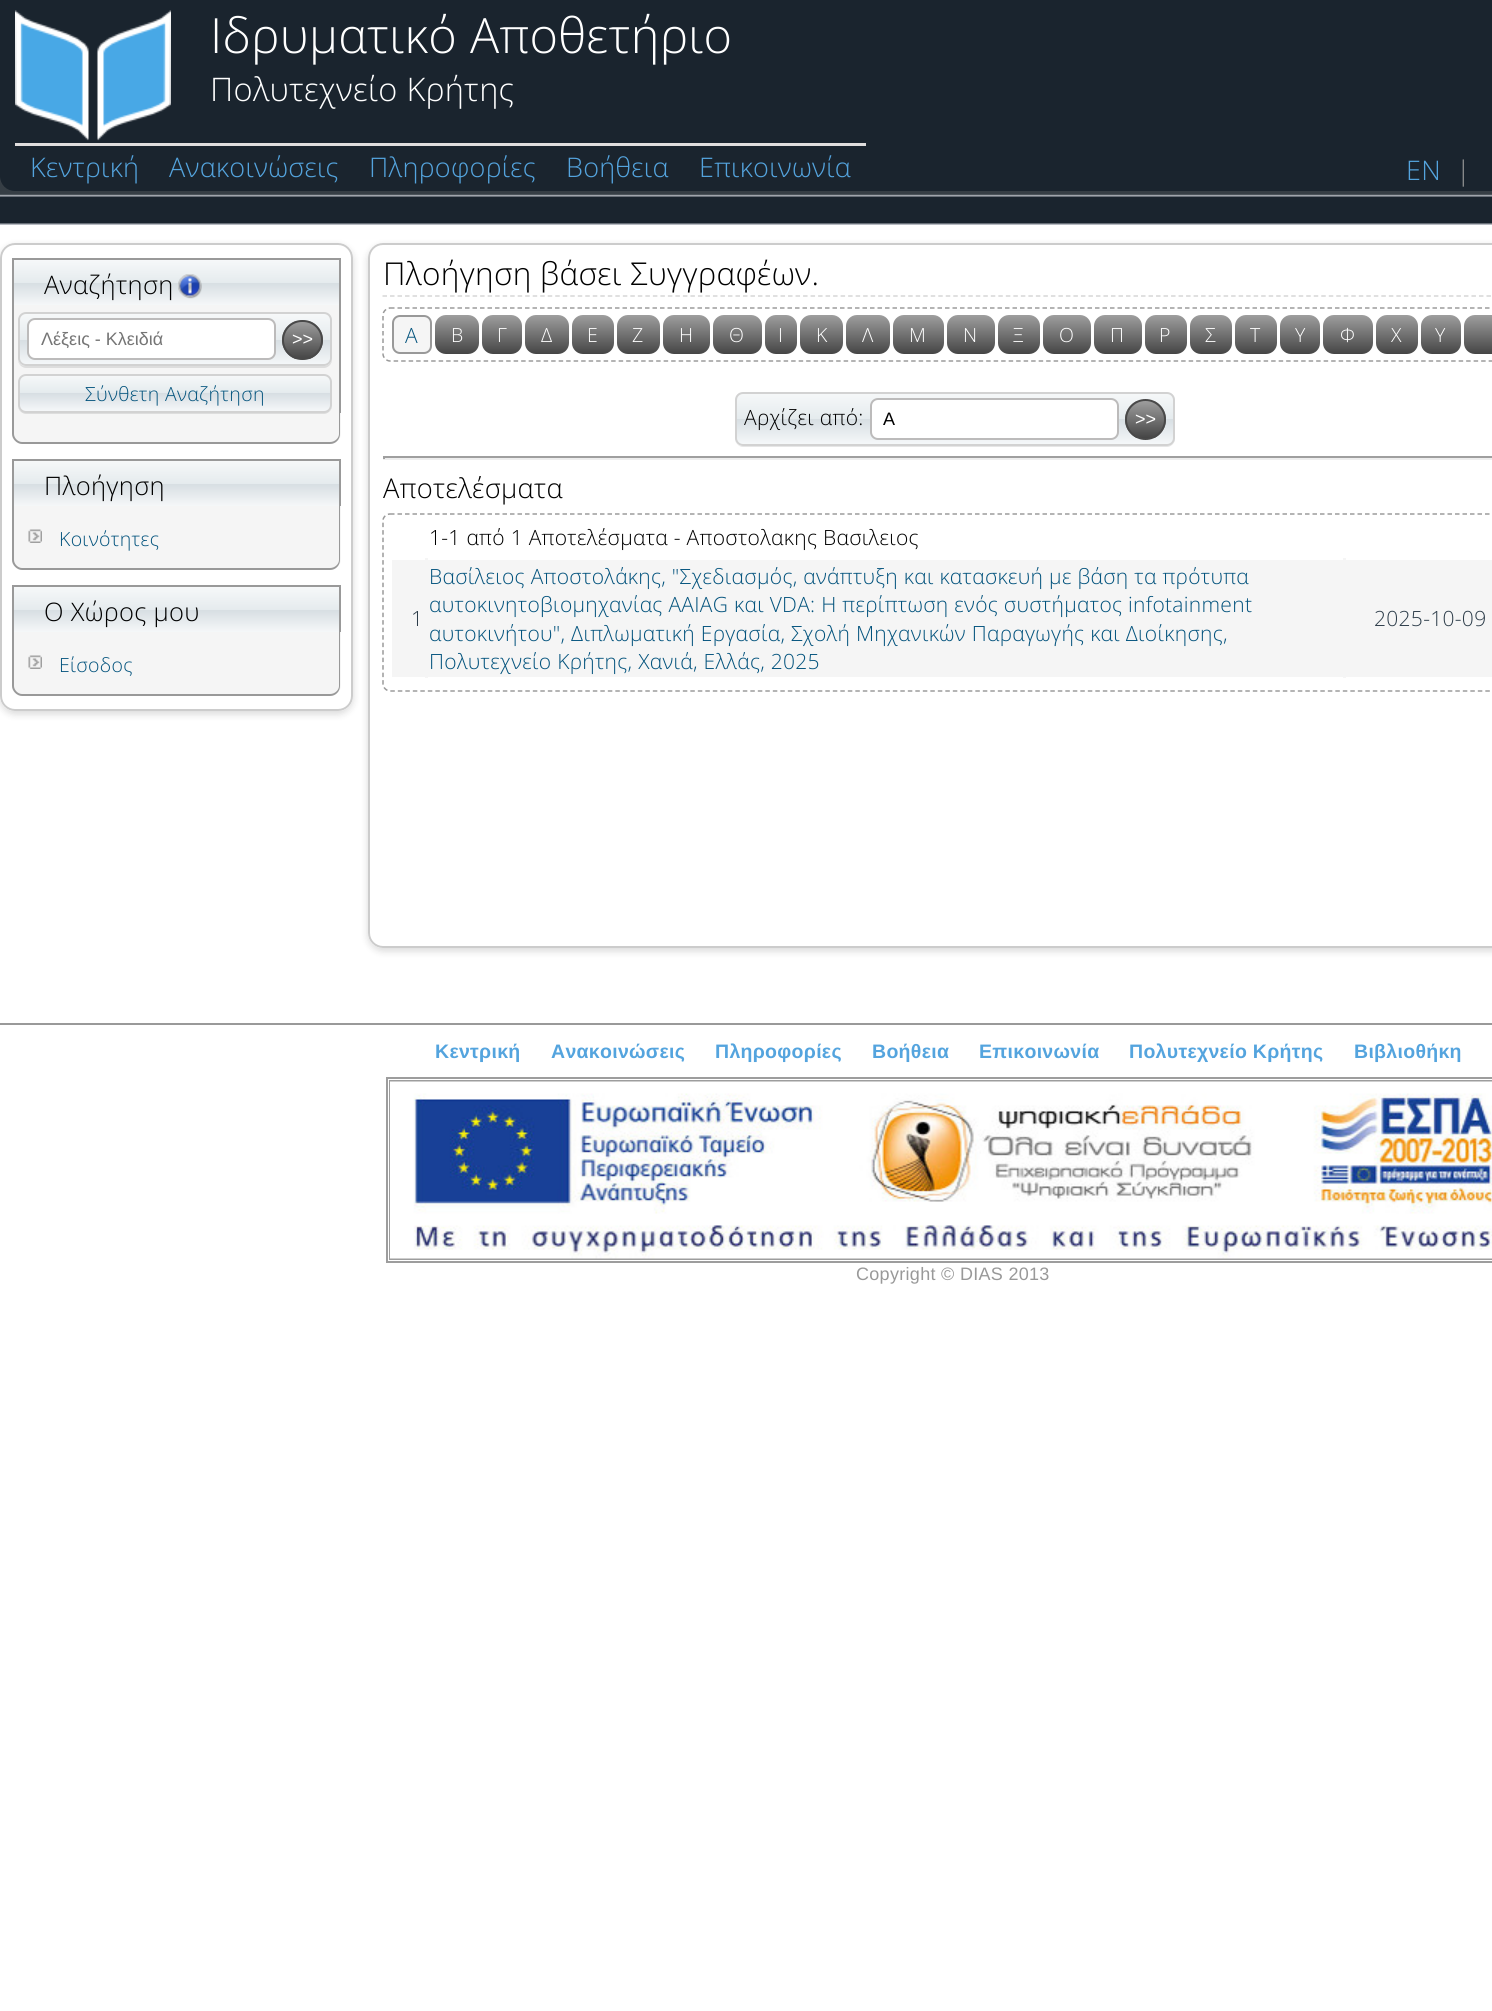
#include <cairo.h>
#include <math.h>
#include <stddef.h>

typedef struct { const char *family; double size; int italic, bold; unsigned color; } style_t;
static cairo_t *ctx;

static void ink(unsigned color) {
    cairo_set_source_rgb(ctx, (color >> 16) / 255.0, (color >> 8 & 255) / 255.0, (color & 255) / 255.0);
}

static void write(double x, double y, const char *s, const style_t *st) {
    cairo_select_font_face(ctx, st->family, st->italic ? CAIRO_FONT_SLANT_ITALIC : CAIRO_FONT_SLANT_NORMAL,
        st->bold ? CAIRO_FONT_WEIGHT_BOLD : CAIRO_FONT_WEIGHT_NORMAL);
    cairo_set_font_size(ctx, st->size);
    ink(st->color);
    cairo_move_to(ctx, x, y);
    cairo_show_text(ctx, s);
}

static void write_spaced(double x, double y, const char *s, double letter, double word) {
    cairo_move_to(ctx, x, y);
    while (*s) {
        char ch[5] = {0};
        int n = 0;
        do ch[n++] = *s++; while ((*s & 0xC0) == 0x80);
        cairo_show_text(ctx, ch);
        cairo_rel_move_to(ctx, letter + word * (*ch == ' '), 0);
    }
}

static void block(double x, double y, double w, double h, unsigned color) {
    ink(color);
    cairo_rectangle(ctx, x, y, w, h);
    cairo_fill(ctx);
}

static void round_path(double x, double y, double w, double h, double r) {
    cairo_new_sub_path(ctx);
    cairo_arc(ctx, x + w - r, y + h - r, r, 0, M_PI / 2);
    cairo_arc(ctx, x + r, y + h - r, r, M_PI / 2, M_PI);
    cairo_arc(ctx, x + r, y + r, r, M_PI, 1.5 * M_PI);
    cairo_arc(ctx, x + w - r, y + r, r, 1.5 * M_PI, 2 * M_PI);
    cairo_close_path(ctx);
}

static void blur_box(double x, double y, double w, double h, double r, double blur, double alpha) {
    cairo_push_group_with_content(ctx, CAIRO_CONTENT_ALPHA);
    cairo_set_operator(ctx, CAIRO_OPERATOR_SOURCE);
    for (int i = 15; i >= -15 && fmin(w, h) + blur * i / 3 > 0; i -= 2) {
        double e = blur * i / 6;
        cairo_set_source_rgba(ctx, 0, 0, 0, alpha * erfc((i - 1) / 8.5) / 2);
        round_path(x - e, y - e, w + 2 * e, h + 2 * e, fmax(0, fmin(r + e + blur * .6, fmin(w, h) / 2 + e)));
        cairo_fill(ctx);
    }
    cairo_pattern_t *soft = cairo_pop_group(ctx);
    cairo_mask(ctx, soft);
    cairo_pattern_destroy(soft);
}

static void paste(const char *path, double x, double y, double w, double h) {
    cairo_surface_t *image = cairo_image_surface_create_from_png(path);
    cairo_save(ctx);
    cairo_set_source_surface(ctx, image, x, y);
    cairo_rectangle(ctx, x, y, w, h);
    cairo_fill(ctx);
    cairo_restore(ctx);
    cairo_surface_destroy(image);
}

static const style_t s1 = {"Liberation Sans", 18, 0, 0, 0x757575};
static const style_t s2 = {"Liberation Sans", 18, 0, 0, 0xffffff};
static const style_t s3 = {"Liberation Sans", 18, 0, 0, 0x000000};

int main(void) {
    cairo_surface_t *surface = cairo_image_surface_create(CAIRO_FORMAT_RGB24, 1492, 2011);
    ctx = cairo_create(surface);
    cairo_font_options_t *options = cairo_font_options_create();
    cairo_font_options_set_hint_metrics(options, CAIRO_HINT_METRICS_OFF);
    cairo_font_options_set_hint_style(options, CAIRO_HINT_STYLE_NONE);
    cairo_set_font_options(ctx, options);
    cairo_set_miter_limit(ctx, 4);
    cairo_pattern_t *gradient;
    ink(0xffffff);
    cairo_paint(ctx);
    paste("pic1.png", 0, 176, 1492, 49);
    ink(0x1a242e);
    cairo_new_path(ctx);
    cairo_move_to(ctx, 0, 0);
    cairo_line_to(ctx, 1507, 0);
    cairo_line_to(ctx, 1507, 176);
    cairo_curve_to(ctx, 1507, 184.5, 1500.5, 191, 1492, 191);
    cairo_line_to(ctx, 15, 191);
    cairo_curve_to(ctx, 6.5, 191, 0, 184.5, 0, 176);
    cairo_close_path(ctx);
    cairo_fill(ctx);
    paste("pic2.png", 15, 10, 156, 131);
    cairo_select_font_face(ctx, "Open Sans Light", CAIRO_FONT_SLANT_NORMAL, CAIRO_FONT_WEIGHT_NORMAL);
    cairo_set_font_size(ctx, 48.6);
    ink(0xffffff);
    write_spaced(210, 53, "Ιδρυματικό Αποθετήριο", 0.3, 0);
    cairo_set_font_size(ctx, 32.5);
    write_spaced(210, 101, "Πολυτεχνείο Κρήτης", 0.3, 0);
    block(15, 143, 851, 3, 0xe0dede);
    cairo_set_font_size(ctx, 27);
    ink(0x54a4de);
    write_spaced(30, 177, "Κεντρική", 0.3, 0);
    write_spaced(169, 177, "Ανακοινώσεις", 0.3, 0);
    write_spaced(369, 177, "Πληροφορίες", 0.3, 0);
    write_spaced(566, 177, "Βοήθεια", 0.3, 0);
    write_spaced(699, 177, "Επικοινωνία", 0.3, 0);
    write_spaced(1406, 180, "EN", 0.3, 0);
    ink(0x999999);
    write_spaced(1456, 180, "|", 0.3, 0);
    cairo_save(ctx);
    cairo_set_fill_rule(ctx, CAIRO_FILL_RULE_EVEN_ODD);
    cairo_new_path(ctx);
    cairo_move_to(ctx, 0, 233);
    cairo_line_to(ctx, 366, 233);
    cairo_line_to(ctx, 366, 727);
    cairo_line_to(ctx, 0, 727);
    cairo_close_path(ctx);
    cairo_move_to(ctx, 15, 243);
    cairo_line_to(ctx, 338, 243);
    cairo_curve_to(ctx, 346.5, 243, 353, 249.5, 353, 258);
    cairo_line_to(ctx, 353, 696);
    cairo_curve_to(ctx, 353, 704.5, 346.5, 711, 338, 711);
    cairo_line_to(ctx, 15, 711);
    cairo_curve_to(ctx, 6.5, 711, 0, 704.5, 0, 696);
    cairo_line_to(ctx, 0, 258);
    cairo_curve_to(ctx, 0, 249.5, 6.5, 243, 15, 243);
    cairo_close_path(ctx);
    cairo_clip(ctx);
    ink(0x000000);
    blur_box(0, 246, 353, 468, 15, 4, 0.15);
    cairo_restore(ctx);
    round_path(1.5, 244.5, 350, 465, 13.5);
    ink(0xffffff);
    cairo_set_line_width(ctx, 3);
    cairo_stroke(ctx);
    round_path(1, 244, 351, 466, 14);
    cairo_set_source_rgba(ctx, 0, 0, 0, 0.2);
    cairo_set_line_width(ctx, 2);
    cairo_stroke(ctx);
    gradient = cairo_pattern_create_linear(176, 260, 176, 305);
    cairo_pattern_add_color_stop_rgba(gradient, 0, 0.965, 0.973, 0.976, 1);
    cairo_pattern_add_color_stop_rgba(gradient, 0.5, 0.898, 0.922, 0.933, 1);
    cairo_pattern_add_color_stop_rgba(gradient, 0.51, 0.843, 0.871, 0.89, 1);
    cairo_pattern_add_color_stop_rgba(gradient, 1, 0.961, 0.969, 0.976, 1);
    cairo_set_source(ctx, gradient);
    cairo_pattern_destroy(gradient);
    cairo_rectangle(ctx, 14, 260, 325, 45);
    cairo_fill(ctx);
    block(12, 258, 329, 2, 0x999999);
    block(339, 258, 2, 155, 0x999999);
    block(12, 258, 2, 155, 0x999999);
    cairo_set_font_size(ctx, 25.5);
    ink(0x000000);
    write_spaced(44, 294, "Αναζήτηση", 0.3, 0);
    paste("pic3.png", 178, 274, 24, 25);
    block(14, 305, 325, 108, 0xf5f5f5);
    ink(0xdddddd);
    cairo_new_path(ctx);
    cairo_move_to(ctx, 18, 358);
    cairo_line_to(ctx, 18, 360);
    cairo_curve_to(ctx, 18, 364, 22, 368, 26, 368);
    cairo_line_to(ctx, 324, 368);
    cairo_curve_to(ctx, 328, 368, 332, 364, 332, 360);
    cairo_line_to(ctx, 332, 322);
    cairo_line_to(ctx, 331, 319);
    cairo_line_to(ctx, 332, 358);
    cairo_curve_to(ctx, 332, 363, 328, 366, 324, 366);
    cairo_line_to(ctx, 26, 366);
    cairo_curve_to(ctx, 21, 366, 18, 363, 18, 358);
    cairo_close_path(ctx);
    cairo_fill(ctx);
    cairo_save(ctx);
    round_path(18, 312, 314, 54, 8);
    cairo_clip(ctx);
    gradient = cairo_pattern_create_linear(175, 314, 175, 365);
    cairo_pattern_add_color_stop_rgba(gradient, 0, 0.965, 0.973, 0.976, 1);
    cairo_pattern_add_color_stop_rgba(gradient, 0.5, 0.898, 0.922, 0.933, 1);
    cairo_pattern_add_color_stop_rgba(gradient, 0.51, 0.843, 0.871, 0.89, 1);
    cairo_pattern_add_color_stop_rgba(gradient, 1, 0.961, 0.969, 0.976, 1);
    cairo_set_source(ctx, gradient);
    cairo_pattern_destroy(gradient);
    cairo_rectangle(ctx, 18, 314, 314, 51);
    cairo_fill(ctx);
    cairo_restore(ctx);
    round_path(19, 313, 312, 52, 7);
    ink(0xd2d2d2);
    cairo_stroke(ctx);
    ink(0xffffff);
    round_path(28, 319, 247, 40, 7);
    cairo_fill_preserve(ctx);
    ink(0xbcbbbb);
    cairo_stroke(ctx);
    write(41, 345, "Λέξεις - Κλειδιά", &s1);
    cairo_save(ctx);
    round_path(282, 320, 41, 40, 20);
    cairo_clip(ctx);
    gradient = cairo_pattern_create_linear(284, 321, 284, 359);
    cairo_pattern_add_color_stop_rgba(gradient, 0, 0.62, 0.62, 0.62, 1);
    cairo_pattern_add_color_stop_rgba(gradient, 1, 0.271, 0.271, 0.271, 1);
    cairo_set_source(ctx, gradient);
    cairo_pattern_destroy(gradient);
    cairo_rectangle(ctx, 282, 321, 41, 38);
    cairo_fill(ctx);
    cairo_restore(ctx);
    round_path(283, 321, 39, 38, 19);
    ink(0x494949);
    cairo_stroke(ctx);
    write(292, 345, ">>", &s2);
    ink(0xf5f5f5);
    cairo_new_path(ctx);
    cairo_move_to(ctx, 12, 413);
    cairo_line_to(ctx, 341, 413);
    cairo_line_to(ctx, 341, 433);
    cairo_curve_to(ctx, 341, 439, 336, 444, 330, 444);
    cairo_line_to(ctx, 23, 444);
    cairo_curve_to(ctx, 17, 444, 12, 439, 12, 433);
    cairo_close_path(ctx);
    cairo_fill(ctx);
    ink(0x999999);
    cairo_set_fill_rule(ctx, CAIRO_FILL_RULE_EVEN_ODD);
    cairo_new_path(ctx);
    cairo_move_to(ctx, 12, 412);
    cairo_line_to(ctx, 340, 412);
    cairo_line_to(ctx, 340, 434);
    cairo_curve_to(ctx, 340, 439, 336, 444, 330, 444);
    cairo_line_to(ctx, 22, 444);
    cairo_curve_to(ctx, 17, 444, 12, 439, 12, 434);
    cairo_close_path(ctx);
    cairo_move_to(ctx, 14, 412);
    cairo_line_to(ctx, 339, 412);
    cairo_line_to(ctx, 339, 434);
    cairo_curve_to(ctx, 339, 438, 335, 442, 330, 442);
    cairo_line_to(ctx, 22, 442);
    cairo_curve_to(ctx, 18, 442, 14, 438, 14, 434);
    cairo_close_path(ctx);
    cairo_fill(ctx);
    ink(0xdddddd);
    cairo_set_fill_rule(ctx, CAIRO_FILL_RULE_WINDING);
    cairo_new_path(ctx);
    cairo_move_to(ctx, 18, 405);
    cairo_line_to(ctx, 18, 406);
    cairo_curve_to(ctx, 18, 410, 22, 414, 26, 414);
    cairo_line_to(ctx, 324, 414);
    cairo_curve_to(ctx, 328, 414, 332, 410, 332, 406);
    cairo_line_to(ctx, 332, 383);
    cairo_line_to(ctx, 331, 380);
    cairo_line_to(ctx, 332, 405);
    cairo_curve_to(ctx, 332, 409, 328, 412, 324, 412);
    cairo_line_to(ctx, 26, 412);
    cairo_curve_to(ctx, 21, 412, 18, 409, 18, 405);
    cairo_close_path(ctx);
    cairo_fill(ctx);
    cairo_save(ctx);
    round_path(18, 374, 314, 39, 8);
    cairo_clip(ctx);
    gradient = cairo_pattern_create_linear(175, 375, 175, 411);
    cairo_pattern_add_color_stop_rgba(gradient, 0, 0.965, 0.973, 0.976, 1);
    cairo_pattern_add_color_stop_rgba(gradient, 0.5, 0.898, 0.922, 0.933, 1);
    cairo_pattern_add_color_stop_rgba(gradient, 0.51, 0.843, 0.871, 0.89, 1);
    cairo_pattern_add_color_stop_rgba(gradient, 1, 0.961, 0.969, 0.976, 1);
    cairo_set_source(ctx, gradient);
    cairo_pattern_destroy(gradient);
    cairo_rectangle(ctx, 18, 375, 314, 36);
    cairo_fill(ctx);
    cairo_restore(ctx);
    round_path(19, 375, 312, 37, 7);
    ink(0xd2d2d2);
    cairo_stroke(ctx);
    cairo_select_font_face(ctx, "Open Sans Light", CAIRO_FONT_SLANT_NORMAL, CAIRO_FONT_WEIGHT_NORMAL);
    cairo_set_font_size(ctx, 19.5);
    ink(0x03537d);
    write_spaced(85, 401, "Σύνθετη Αναζήτηση", 0.3, 0);
    gradient = cairo_pattern_create_linear(176, 461, 176, 506);
    cairo_pattern_add_color_stop_rgba(gradient, 0, 0.965, 0.973, 0.976, 1);
    cairo_pattern_add_color_stop_rgba(gradient, 0.5, 0.898, 0.922, 0.933, 1);
    cairo_pattern_add_color_stop_rgba(gradient, 0.51, 0.843, 0.871, 0.89, 1);
    cairo_pattern_add_color_stop_rgba(gradient, 1, 0.961, 0.969, 0.976, 1);
    cairo_set_source(ctx, gradient);
    cairo_pattern_destroy(gradient);
    cairo_rectangle(ctx, 14, 461, 325, 45);
    cairo_fill(ctx);
    block(12, 459, 329, 2, 0x999999);
    block(339, 459, 2, 47, 0x999999);
    block(12, 459, 2, 47, 0x999999);
    cairo_set_font_size(ctx, 25.5);
    ink(0x000000);
    write_spaced(44, 495, "Πλοήγηση", 0.3, 0);
    ink(0xf5f5f5);
    cairo_new_path(ctx);
    cairo_move_to(ctx, 12, 506);
    cairo_line_to(ctx, 341, 506);
    cairo_line_to(ctx, 341, 559);
    cairo_curve_to(ctx, 341, 565, 336, 570, 330, 570);
    cairo_line_to(ctx, 23, 570);
    cairo_curve_to(ctx, 17, 570, 12, 565, 12, 559);
    cairo_close_path(ctx);
    cairo_fill(ctx);
    ink(0x999999);
    cairo_set_fill_rule(ctx, CAIRO_FILL_RULE_EVEN_ODD);
    cairo_new_path(ctx);
    cairo_move_to(ctx, 12, 506);
    cairo_line_to(ctx, 340, 506);
    cairo_line_to(ctx, 340, 560);
    cairo_curve_to(ctx, 340, 565, 336, 570, 330, 570);
    cairo_line_to(ctx, 22, 570);
    cairo_curve_to(ctx, 17, 570, 12, 565, 12, 560);
    cairo_close_path(ctx);
    cairo_move_to(ctx, 14, 506);
    cairo_line_to(ctx, 339, 506);
    cairo_line_to(ctx, 339, 560);
    cairo_curve_to(ctx, 339, 564, 335, 568, 330, 568);
    cairo_line_to(ctx, 22, 568);
    cairo_curve_to(ctx, 18, 568, 14, 564, 14, 560);
    cairo_close_path(ctx);
    cairo_fill(ctx);
    paste("pic4.png", 28, 529, 14, 14);
    cairo_set_font_size(ctx, 19.5);
    ink(0x03537d);
    write_spaced(59, 546, "Κοινότητες", 0.3, 0);
    gradient = cairo_pattern_create_linear(176, 587, 176, 632);
    cairo_pattern_add_color_stop_rgba(gradient, 0, 0.965, 0.973, 0.976, 1);
    cairo_pattern_add_color_stop_rgba(gradient, 0.5, 0.898, 0.922, 0.933, 1);
    cairo_pattern_add_color_stop_rgba(gradient, 0.51, 0.843, 0.871, 0.89, 1);
    cairo_pattern_add_color_stop_rgba(gradient, 1, 0.961, 0.969, 0.976, 1);
    cairo_set_source(ctx, gradient);
    cairo_pattern_destroy(gradient);
    cairo_rectangle(ctx, 14, 587, 325, 45);
    cairo_fill(ctx);
    block(12, 585, 329, 2, 0x999999);
    block(339, 585, 2, 47, 0x999999);
    block(12, 585, 2, 47, 0x999999);
    cairo_set_font_size(ctx, 25.5);
    ink(0x000000);
    write_spaced(44, 621, "Ο Χώρος μου", 0.3, 0);
    ink(0xf5f5f5);
    cairo_new_path(ctx);
    cairo_move_to(ctx, 12, 632);
    cairo_line_to(ctx, 341, 632);
    cairo_line_to(ctx, 341, 685);
    cairo_curve_to(ctx, 341, 691, 336, 696, 330, 696);
    cairo_line_to(ctx, 23, 696);
    cairo_curve_to(ctx, 17, 696, 12, 691, 12, 685);
    cairo_close_path(ctx);
    cairo_fill(ctx);
    ink(0x999999);
    cairo_new_path(ctx);
    cairo_move_to(ctx, 12, 632);
    cairo_line_to(ctx, 340, 632);
    cairo_line_to(ctx, 340, 686);
    cairo_curve_to(ctx, 340, 691, 336, 696, 330, 696);
    cairo_line_to(ctx, 22, 696);
    cairo_curve_to(ctx, 17, 696, 12, 691, 12, 686);
    cairo_close_path(ctx);
    cairo_move_to(ctx, 14, 632);
    cairo_line_to(ctx, 339, 632);
    cairo_line_to(ctx, 339, 686);
    cairo_curve_to(ctx, 339, 690, 335, 694, 330, 694);
    cairo_line_to(ctx, 22, 694);
    cairo_curve_to(ctx, 18, 694, 14, 690, 14, 686);
    cairo_close_path(ctx);
    cairo_fill(ctx);
    paste("pic4.png", 28, 655, 14, 14);
    cairo_set_font_size(ctx, 19.5);
    ink(0x03537d);
    write_spaced(59, 672, "Είσοδος", 0.3, 0);
    cairo_save(ctx);
    cairo_new_path(ctx);
    cairo_move_to(ctx, 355, 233);
    cairo_line_to(ctx, 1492, 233);
    cairo_line_to(ctx, 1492, 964);
    cairo_line_to(ctx, 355, 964);
    cairo_close_path(ctx);
    cairo_move_to(ctx, 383, 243);
    cairo_line_to(ctx, 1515, 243);
    cairo_curve_to(ctx, 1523.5, 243, 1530, 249.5, 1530, 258);
    cairo_line_to(ctx, 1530, 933);
    cairo_curve_to(ctx, 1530, 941.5, 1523.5, 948, 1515, 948);
    cairo_line_to(ctx, 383, 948);
    cairo_curve_to(ctx, 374.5, 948, 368, 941.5, 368, 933);
    cairo_line_to(ctx, 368, 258);
    cairo_curve_to(ctx, 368, 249.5, 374.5, 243, 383, 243);
    cairo_close_path(ctx);
    cairo_clip(ctx);
    ink(0x000000);
    blur_box(368, 246, 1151, 705, 15, 4, 0.15);
    cairo_restore(ctx);
    round_path(369.5, 244.5, 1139, 702, 13.5);
    ink(0xffffff);
    cairo_set_line_width(ctx, 3);
    cairo_stroke(ctx);
    round_path(369, 244, 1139, 703, 14);
    cairo_set_source_rgba(ctx, 0, 0, 0, 0.2);
    cairo_set_line_width(ctx, 2);
    cairo_stroke(ctx);
    cairo_new_path(ctx);
    cairo_move_to(ctx, 382.5, 296);
    cairo_line_to(ctx, 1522.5, 296);
    ink(0xd6d6d6);
    cairo_set_line_width(ctx, 1.5);
    cairo_set_dash(ctx, (double[]){4.5, 3.01}, 2, 0);
    cairo_stroke(ctx);
    cairo_set_font_size(ctx, 31.5);
    ink(0x000000);
    write_spaced(383, 285, "Πλοήγηση βάσει Συγγραφέων.", 0.3, 0);
    cairo_new_path(ctx);
    cairo_move_to(ctx, 390, 308);
    cairo_line_to(ctx, 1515, 308);
    cairo_curve_to(ctx, 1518.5, 308, 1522, 311.5, 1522, 315);
    cairo_line_to(ctx, 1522, 354);
    cairo_curve_to(ctx, 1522, 357.5, 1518.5, 361, 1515, 361);
    cairo_line_to(ctx, 390, 361);
    cairo_curve_to(ctx, 386.5, 361, 383, 357.5, 383, 354);
    cairo_line_to(ctx, 383, 315);
    cairo_curve_to(ctx, 383, 311.5, 386.5, 308, 390, 308);
    cairo_close_path(ctx);
    ink(0x999999);
    cairo_set_dash(ctx, (double[]){4.5, 3}, 2, 0);
    cairo_stroke(ctx);
    ink(0xf5f5f5);
    round_path(393, 316, 38, 37, 7);
    cairo_fill_preserve(ctx);
    ink(0x999999);
    cairo_set_line_width(ctx, 2);
    cairo_set_dash(ctx, NULL, 0, 0);
    cairo_stroke(ctx);
    cairo_set_font_size(ctx, 21);
    ink(0x03537d);
    write_spaced(405, 343, "Α", 0.3, 0);
    gradient = cairo_pattern_create_linear(435, 315, 435, 354);
    cairo_pattern_add_color_stop_rgba(gradient, 0, 0.62, 0.62, 0.62, 1);
    cairo_pattern_add_color_stop_rgba(gradient, 1, 0.271, 0.271, 0.271, 1);
    cairo_set_source(ctx, gradient);
    cairo_pattern_destroy(gradient);
    round_path(435, 315, 44, 39, 11);
    cairo_fill(ctx);
    cairo_set_font_size(ctx, 19.5);
    ink(0xffffff);
    write_spaced(451, 342, "Β", 0.3, 0);
    gradient = cairo_pattern_create_linear(482, 315, 482, 354);
    cairo_pattern_add_color_stop_rgba(gradient, 0, 0.62, 0.62, 0.62, 1);
    cairo_pattern_add_color_stop_rgba(gradient, 1, 0.271, 0.271, 0.271, 1);
    cairo_set_source(ctx, gradient);
    cairo_pattern_destroy(gradient);
    round_path(482, 315, 40, 39, 11);
    cairo_fill(ctx);
    ink(0xffffff);
    write_spaced(497, 342, "Γ", 0.3, 0);
    gradient = cairo_pattern_create_linear(525, 315, 525, 354);
    cairo_pattern_add_color_stop_rgba(gradient, 0, 0.62, 0.62, 0.62, 1);
    cairo_pattern_add_color_stop_rgba(gradient, 1, 0.271, 0.271, 0.271, 1);
    cairo_set_source(ctx, gradient);
    cairo_pattern_destroy(gradient);
    round_path(525, 315, 44, 39, 11);
    cairo_fill(ctx);
    ink(0xffffff);
    write_spaced(541, 342, "Δ", 0.3, 0);
    gradient = cairo_pattern_create_linear(572, 315, 572, 354);
    cairo_pattern_add_color_stop_rgba(gradient, 0, 0.62, 0.62, 0.62, 1);
    cairo_pattern_add_color_stop_rgba(gradient, 1, 0.271, 0.271, 0.271, 1);
    cairo_set_source(ctx, gradient);
    cairo_pattern_destroy(gradient);
    round_path(572, 315, 42, 39, 11);
    cairo_fill(ctx);
    ink(0xffffff);
    write_spaced(587, 342, "Ε", 0.3, 0);
    gradient = cairo_pattern_create_linear(617, 315, 617, 354);
    cairo_pattern_add_color_stop_rgba(gradient, 0, 0.62, 0.62, 0.62, 1);
    cairo_pattern_add_color_stop_rgba(gradient, 1, 0.271, 0.271, 0.271, 1);
    cairo_set_source(ctx, gradient);
    cairo_pattern_destroy(gradient);
    round_path(617, 315, 43, 39, 11);
    cairo_fill(ctx);
    ink(0xffffff);
    write_spaced(632, 342, "Ζ", 0.3, 0);
    gradient = cairo_pattern_create_linear(663, 315, 663, 354);
    cairo_pattern_add_color_stop_rgba(gradient, 0, 0.62, 0.62, 0.62, 1);
    cairo_pattern_add_color_stop_rgba(gradient, 1, 0.271, 0.271, 0.271, 1);
    cairo_set_source(ctx, gradient);
    cairo_pattern_destroy(gradient);
    round_path(663, 315, 47, 39, 11);
    cairo_fill(ctx);
    ink(0xffffff);
    write_spaced(679, 342, "Η", 0.3, 0);
    gradient = cairo_pattern_create_linear(713, 315, 713, 354);
    cairo_pattern_add_color_stop_rgba(gradient, 0, 0.62, 0.62, 0.62, 1);
    cairo_pattern_add_color_stop_rgba(gradient, 1, 0.271, 0.271, 0.271, 1);
    cairo_set_source(ctx, gradient);
    cairo_pattern_destroy(gradient);
    round_path(713, 315, 49, 39, 11);
    cairo_fill(ctx);
    ink(0xffffff);
    write_spaced(729, 342, "Θ", 0.3, 0);
    gradient = cairo_pattern_create_linear(765, 315, 765, 354);
    cairo_pattern_add_color_stop_rgba(gradient, 0, 0.62, 0.62, 0.62, 1);
    cairo_pattern_add_color_stop_rgba(gradient, 1, 0.271, 0.271, 0.271, 1);
    cairo_set_source(ctx, gradient);
    cairo_pattern_destroy(gradient);
    round_path(765, 315, 32, 39, 11);
    cairo_fill(ctx);
    ink(0xffffff);
    write_spaced(778, 342, "Ι", 0.3, 0);
    gradient = cairo_pattern_create_linear(800, 315, 800, 354);
    cairo_pattern_add_color_stop_rgba(gradient, 0, 0.62, 0.62, 0.62, 1);
    cairo_pattern_add_color_stop_rgba(gradient, 1, 0.271, 0.271, 0.271, 1);
    cairo_set_source(ctx, gradient);
    cairo_pattern_destroy(gradient);
    round_path(800, 315, 43, 39, 11);
    cairo_fill(ctx);
    ink(0xffffff);
    write_spaced(816, 342, "Κ", 0.3, 0);
    gradient = cairo_pattern_create_linear(846, 315, 846, 354);
    cairo_pattern_add_color_stop_rgba(gradient, 0, 0.62, 0.62, 0.62, 1);
    cairo_pattern_add_color_stop_rgba(gradient, 1, 0.271, 0.271, 0.271, 1);
    cairo_set_source(ctx, gradient);
    cairo_pattern_destroy(gradient);
    round_path(846, 315, 44, 39, 11);
    cairo_fill(ctx);
    ink(0xffffff);
    write_spaced(862, 342, "Λ", 0.3, 0);
    gradient = cairo_pattern_create_linear(893, 315, 893, 354);
    cairo_pattern_add_color_stop_rgba(gradient, 0, 0.62, 0.62, 0.62, 1);
    cairo_pattern_add_color_stop_rgba(gradient, 1, 0.271, 0.271, 0.271, 1);
    cairo_set_source(ctx, gradient);
    cairo_pattern_destroy(gradient);
    round_path(893, 315, 51, 39, 11);
    cairo_fill(ctx);
    ink(0xffffff);
    write_spaced(909, 342, "Μ", 0.3, 0);
    gradient = cairo_pattern_create_linear(947, 315, 947, 354);
    cairo_pattern_add_color_stop_rgba(gradient, 0, 0.62, 0.62, 0.62, 1);
    cairo_pattern_add_color_stop_rgba(gradient, 1, 0.271, 0.271, 0.271, 1);
    cairo_set_source(ctx, gradient);
    cairo_pattern_destroy(gradient);
    round_path(947, 315, 48, 39, 11);
    cairo_fill(ctx);
    ink(0xffffff);
    write_spaced(963, 342, "Ν", 0.3, 0);
    gradient = cairo_pattern_create_linear(998, 315, 998, 354);
    cairo_pattern_add_color_stop_rgba(gradient, 0, 0.62, 0.62, 0.62, 1);
    cairo_pattern_add_color_stop_rgba(gradient, 1, 0.271, 0.271, 0.271, 1);
    cairo_set_source(ctx, gradient);
    cairo_pattern_destroy(gradient);
    round_path(998, 315, 42, 39, 11);
    cairo_fill(ctx);
    ink(0xffffff);
    write_spaced(1013, 342, "Ξ", 0.3, 0);
    gradient = cairo_pattern_create_linear(1043, 315, 1043, 354);
    cairo_pattern_add_color_stop_rgba(gradient, 0, 0.62, 0.62, 0.62, 1);
    cairo_pattern_add_color_stop_rgba(gradient, 1, 0.271, 0.271, 0.271, 1);
    cairo_set_source(ctx, gradient);
    cairo_pattern_destroy(gradient);
    round_path(1043, 315, 48, 39, 11);
    cairo_fill(ctx);
    ink(0xffffff);
    write_spaced(1059, 342, "Ο", 0.3, 0);
    gradient = cairo_pattern_create_linear(1094, 315, 1094, 354);
    cairo_pattern_add_color_stop_rgba(gradient, 0, 0.62, 0.62, 0.62, 1);
    cairo_pattern_add_color_stop_rgba(gradient, 1, 0.271, 0.271, 0.271, 1);
    cairo_set_source(ctx, gradient);
    cairo_pattern_destroy(gradient);
    round_path(1094, 315, 48, 39, 11);
    cairo_fill(ctx);
    ink(0xffffff);
    write_spaced(1110, 342, "Π", 0.3, 0);
    gradient = cairo_pattern_create_linear(1145, 315, 1145, 354);
    cairo_pattern_add_color_stop_rgba(gradient, 0, 0.62, 0.62, 0.62, 1);
    cairo_pattern_add_color_stop_rgba(gradient, 1, 0.271, 0.271, 0.271, 1);
    cairo_set_source(ctx, gradient);
    cairo_pattern_destroy(gradient);
    round_path(1145, 315, 42, 39, 11);
    cairo_fill(ctx);
    ink(0xffffff);
    write_spaced(1159, 342, "Ρ", 0.3, 0);
    gradient = cairo_pattern_create_linear(1190, 315, 1190, 354);
    cairo_pattern_add_color_stop_rgba(gradient, 0, 0.62, 0.62, 0.62, 1);
    cairo_pattern_add_color_stop_rgba(gradient, 1, 0.271, 0.271, 0.271, 1);
    cairo_set_source(ctx, gradient);
    cairo_pattern_destroy(gradient);
    round_path(1190, 315, 42, 39, 11);
    cairo_fill(ctx);
    ink(0xffffff);
    write_spaced(1205, 342, "Σ", 0.3, 0);
    gradient = cairo_pattern_create_linear(1235, 315, 1235, 354);
    cairo_pattern_add_color_stop_rgba(gradient, 0, 0.62, 0.62, 0.62, 1);
    cairo_pattern_add_color_stop_rgba(gradient, 1, 0.271, 0.271, 0.271, 1);
    cairo_set_source(ctx, gradient);
    cairo_pattern_destroy(gradient);
    round_path(1235, 315, 42, 39, 11);
    cairo_fill(ctx);
    ink(0xffffff);
    write_spaced(1250, 342, "Τ", 0.3, 0);
    gradient = cairo_pattern_create_linear(1280, 315, 1280, 354);
    cairo_pattern_add_color_stop_rgba(gradient, 0, 0.62, 0.62, 0.62, 1);
    cairo_pattern_add_color_stop_rgba(gradient, 1, 0.271, 0.271, 0.271, 1);
    cairo_set_source(ctx, gradient);
    cairo_pattern_destroy(gradient);
    round_path(1280, 315, 40, 39, 11);
    cairo_fill(ctx);
    ink(0xffffff);
    write_spaced(1295, 342, "Υ", 0.3, 0);
    gradient = cairo_pattern_create_linear(1323, 315, 1323, 354);
    cairo_pattern_add_color_stop_rgba(gradient, 0, 0.62, 0.62, 0.62, 1);
    cairo_pattern_add_color_stop_rgba(gradient, 1, 0.271, 0.271, 0.271, 1);
    cairo_set_source(ctx, gradient);
    cairo_pattern_destroy(gradient);
    round_path(1323, 315, 50, 39, 11);
    cairo_fill(ctx);
    ink(0xffffff);
    write_spaced(1340, 342, "Φ", 0.3, 0);
    gradient = cairo_pattern_create_linear(1376, 315, 1376, 354);
    cairo_pattern_add_color_stop_rgba(gradient, 0, 0.62, 0.62, 0.62, 1);
    cairo_pattern_add_color_stop_rgba(gradient, 1, 0.271, 0.271, 0.271, 1);
    cairo_set_source(ctx, gradient);
    cairo_pattern_destroy(gradient);
    round_path(1376, 315, 42, 39, 11);
    cairo_fill(ctx);
    ink(0xffffff);
    write_spaced(1391, 342, "Χ", 0.3, 0);
    gradient = cairo_pattern_create_linear(1421, 315, 1421, 354);
    cairo_pattern_add_color_stop_rgba(gradient, 0, 0.62, 0.62, 0.62, 1);
    cairo_pattern_add_color_stop_rgba(gradient, 1, 0.271, 0.271, 0.271, 1);
    cairo_set_source(ctx, gradient);
    cairo_pattern_destroy(gradient);
    round_path(1421, 315, 40, 39, 11);
    cairo_fill(ctx);
    ink(0xffffff);
    write_spaced(1435, 342, "Υ", 0.3, 0);
    gradient = cairo_pattern_create_linear(1464, 315, 1464, 354);
    cairo_pattern_add_color_stop_rgba(gradient, 0, 0.62, 0.62, 0.62, 1);
    cairo_pattern_add_color_stop_rgba(gradient, 1, 0.271, 0.271, 0.271, 1);
    cairo_set_source(ctx, gradient);
    cairo_pattern_destroy(gradient);
    round_path(1464, 315, 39, 39, 11);
    cairo_fill(ctx);
    ink(0xe6e6e6);
    cairo_set_fill_rule(ctx, CAIRO_FILL_RULE_WINDING);
    cairo_new_path(ctx);
    cairo_move_to(ctx, 735, 438);
    cairo_line_to(ctx, 735, 439);
    cairo_curve_to(ctx, 735, 443, 739, 447, 743, 447);
    cairo_line_to(ctx, 1167, 447);
    cairo_curve_to(ctx, 1171, 447, 1175, 443, 1175, 439);
    cairo_line_to(ctx, 1175, 401);
    cairo_line_to(ctx, 1174, 398);
    cairo_line_to(ctx, 1174, 438);
    cairo_curve_to(ctx, 1174, 442, 1171, 446, 1167, 446);
    cairo_line_to(ctx, 742, 446);
    cairo_curve_to(ctx, 738, 446, 735, 442, 735, 438);
    cairo_close_path(ctx);
    cairo_fill(ctx);
    cairo_save(ctx);
    round_path(735, 392, 440, 54, 8);
    cairo_clip(ctx);
    gradient = cairo_pattern_create_linear(955, 393, 955, 444);
    cairo_pattern_add_color_stop_rgba(gradient, 0, 0.965, 0.973, 0.976, 1);
    cairo_pattern_add_color_stop_rgba(gradient, 0.5, 0.898, 0.922, 0.933, 1);
    cairo_pattern_add_color_stop_rgba(gradient, 0.51, 0.843, 0.871, 0.89, 1);
    cairo_pattern_add_color_stop_rgba(gradient, 1, 0.961, 0.969, 0.976, 1);
    cairo_set_source(ctx, gradient);
    cairo_pattern_destroy(gradient);
    cairo_rectangle(ctx, 735, 393, 440, 51);
    cairo_fill(ctx);
    cairo_restore(ctx);
    round_path(736, 393, 438, 52, 7);
    ink(0xd2d2d2);
    cairo_stroke(ctx);
    cairo_set_font_size(ctx, 21);
    ink(0x000000);
    write_spaced(744, 425, "Αρχίζει από:", 0.3, 0);
    ink(0xffffff);
    round_path(871, 399, 247, 40, 7);
    cairo_fill_preserve(ctx);
    ink(0xbcbbbb);
    cairo_stroke(ctx);
    write(883, 425, "Α", &s3);
    cairo_save(ctx);
    round_path(1125, 399, 41, 41, 20.5);
    cairo_clip(ctx);
    gradient = cairo_pattern_create_linear(1127, 401, 1127, 438);
    cairo_pattern_add_color_stop_rgba(gradient, 0, 0.62, 0.62, 0.62, 1);
    cairo_pattern_add_color_stop_rgba(gradient, 1, 0.271, 0.271, 0.271, 1);
    cairo_set_source(ctx, gradient);
    cairo_pattern_destroy(gradient);
    cairo_rectangle(ctx, 1125, 401, 41, 37);
    cairo_fill(ctx);
    cairo_restore(ctx);
    cairo_arc(ctx, 1145.5, 419.5, 19.5, 0, 2 * M_PI);
    ink(0x494949);
    cairo_stroke(ctx);
    write(1135, 425, ">>", &s2);
    block(383, 456, 1109, 2, 0x9f9f9f);
    block(383, 458, 1109, 2, 0xeeeeee);
    block(383, 456, 2, 3, 0x9f9f9f);
    cairo_select_font_face(ctx, "Open Sans Light", CAIRO_FONT_SLANT_NORMAL, CAIRO_FONT_WEIGHT_NORMAL);
    cairo_set_font_size(ctx, 27.25);
    ink(0x000000);
    write_spaced(383, 498, "Αποτελέσματα", 0.3, 0);
    cairo_new_path(ctx);
    cairo_move_to(ctx, 390, 514);
    cairo_line_to(ctx, 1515, 514);
    cairo_curve_to(ctx, 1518.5, 514, 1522, 517, 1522, 520.5);
    cairo_line_to(ctx, 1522, 684);
    cairo_curve_to(ctx, 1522, 687.5, 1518.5, 691, 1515, 691);
    cairo_line_to(ctx, 390, 691);
    cairo_curve_to(ctx, 386.5, 691, 383, 687.5, 383, 684);
    cairo_line_to(ctx, 383, 520.5);
    cairo_curve_to(ctx, 383, 517, 386.5, 514, 390, 514);
    cairo_close_path(ctx);
    ink(0x999999);
    cairo_set_line_width(ctx, 1.5);
    cairo_set_dash(ctx, (double[]){4.5, 3}, 2, 0);
    cairo_stroke(ctx);
    cairo_set_font_size(ctx, 21);
    ink(0x000000);
    write_spaced(429, 545, "1-1 από 1 Αποτελέσματα - Αποστολακης Βασιλειος", 0.3, 0);
    block(392, 558, 1100, 120, 0xf5f5f5);
    block(392, 558, 33, 2, 0xffffff);
    block(392, 677, 33, 1, 0xffffff);
    ink(0x2c3c49);
    write_spaced(411, 626, "1", 0.3, 0);
    block(428, 558, 915, 2, 0xffffff);
    block(428, 677, 915, 1, 0xffffff);
    ink(0x03537d);
    write_spaced(429, 584, "Βασίλειος Αποστολάκης, \"Σχεδιασμός, ανάπτυξη και κατασκευή με βάση τα πρότυπα", 0.3, 0);
    write_spaced(429, 612, "αυτοκινητοβιομηχανίας AAIAG και VDA: Η περίπτωση ενός συστήματος infotainment", 0.3, 0);
    write_spaced(429, 641, "αυτοκινήτου\", Διπλωματική Εργασία, Σχολή Μηχανικών Παραγωγής και Διοίκησης,", 0.3, 0);
    write_spaced(429, 669, "Πολυτεχνείο Κρήτης, Χανιά, Ελλάς, 2025", 0.3, 0);
    block(1346, 558, 146, 2, 0xffffff);
    block(1346, 677, 146, 1, 0xffffff);
    ink(0x2c3c49);
    write_spaced(1374, 626, "2025-10-09", 0.3, 0);
    block(0, 1023, 1492, 2, 0x999999);
    cairo_select_font_face(ctx, "Liberation Sans", CAIRO_FONT_SLANT_NORMAL, CAIRO_FONT_WEIGHT_BOLD);
    cairo_set_font_size(ctx, 19.5);
    ink(0x54a4de);
    write_spaced(435, 1058, "Κεντρική", 0.3, 0);
    write_spaced(551, 1058, "Ανακοινώσεις", 0.3, 0);
    write_spaced(715, 1058, "Πληροφορίες", 0.3, 0);
    write_spaced(872, 1058, "Βοήθεια", 0.3, 0);
    write_spaced(979, 1058, "Επικοινωνία", 0.3, 0);
    write_spaced(1129, 1058, "Πολυτεχνείο Κρήτης", 0.3, 0);
    write_spaced(1354, 1058, "Βιβλιοθήκη", 0.3, 0);
    cairo_rectangle(ctx, 387, 1078, 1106, 184);
    ink(0x9d9d9d);
    cairo_set_line_width(ctx, 2);
    cairo_set_dash(ctx, NULL, 0, 0);
    cairo_stroke(ctx);
    cairo_rectangle(ctx, 390, 1081, 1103, 178);
    cairo_stroke(ctx);
    paste("pic5.png", 390, 1081, 1102, 178);
    cairo_select_font_face(ctx, "Liberation Sans", CAIRO_FONT_SLANT_NORMAL, CAIRO_FONT_WEIGHT_NORMAL);
    cairo_set_font_size(ctx, 18);
    ink(0x999999);
    write_spaced(856, 1280, "Copyright © DIAS 2013", 0.3, 0);
    cairo_surface_write_to_png(surface, "screenshot.png");
    cairo_font_options_destroy(options);
    cairo_destroy(ctx);
    cairo_surface_destroy(surface);
    return 0;
}
